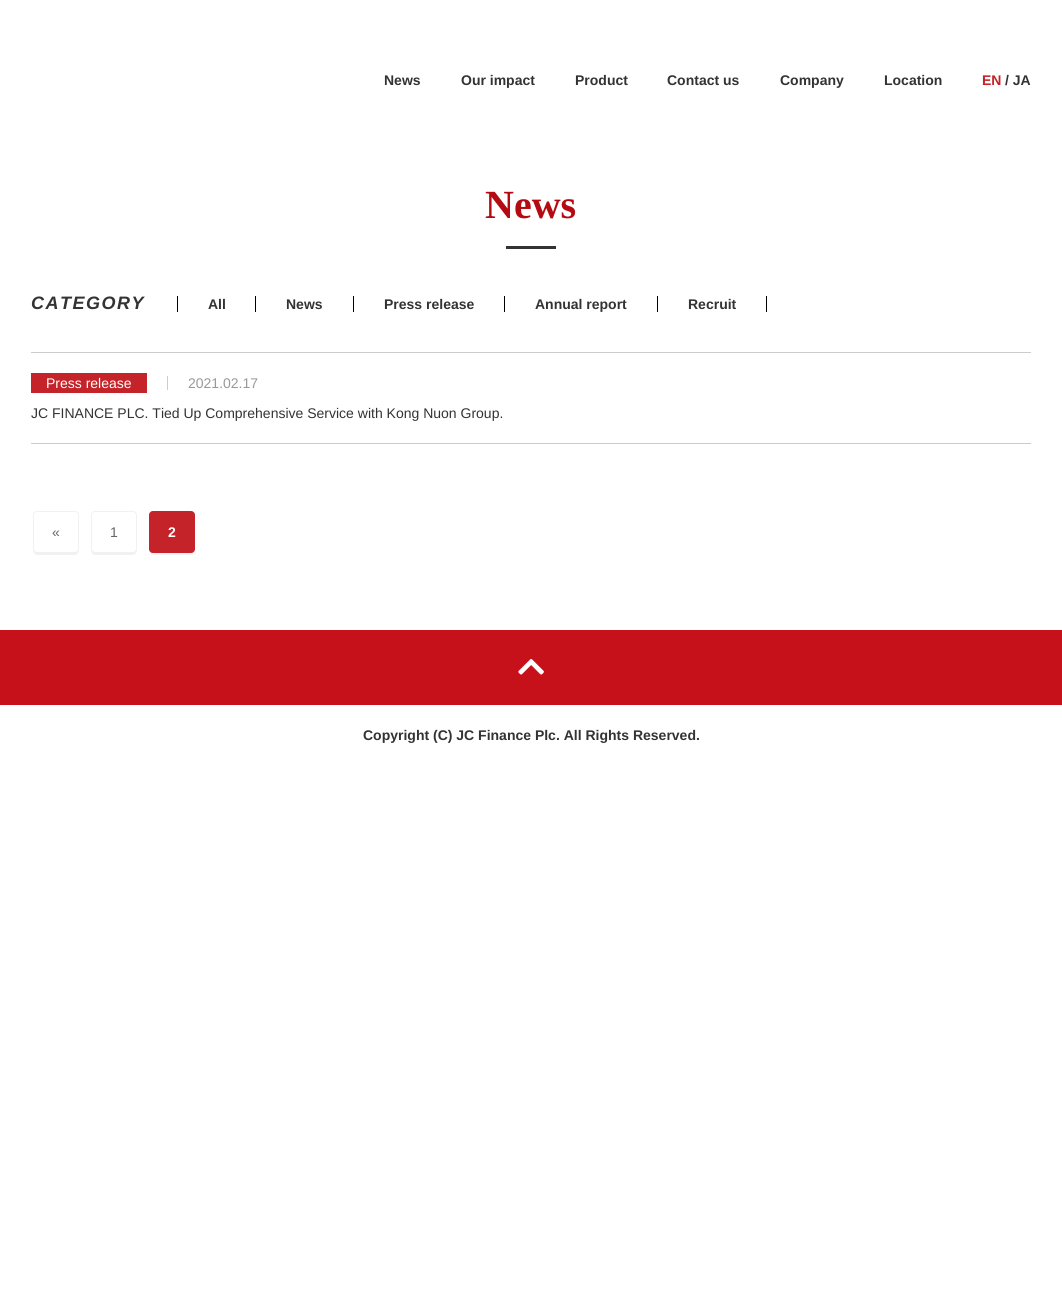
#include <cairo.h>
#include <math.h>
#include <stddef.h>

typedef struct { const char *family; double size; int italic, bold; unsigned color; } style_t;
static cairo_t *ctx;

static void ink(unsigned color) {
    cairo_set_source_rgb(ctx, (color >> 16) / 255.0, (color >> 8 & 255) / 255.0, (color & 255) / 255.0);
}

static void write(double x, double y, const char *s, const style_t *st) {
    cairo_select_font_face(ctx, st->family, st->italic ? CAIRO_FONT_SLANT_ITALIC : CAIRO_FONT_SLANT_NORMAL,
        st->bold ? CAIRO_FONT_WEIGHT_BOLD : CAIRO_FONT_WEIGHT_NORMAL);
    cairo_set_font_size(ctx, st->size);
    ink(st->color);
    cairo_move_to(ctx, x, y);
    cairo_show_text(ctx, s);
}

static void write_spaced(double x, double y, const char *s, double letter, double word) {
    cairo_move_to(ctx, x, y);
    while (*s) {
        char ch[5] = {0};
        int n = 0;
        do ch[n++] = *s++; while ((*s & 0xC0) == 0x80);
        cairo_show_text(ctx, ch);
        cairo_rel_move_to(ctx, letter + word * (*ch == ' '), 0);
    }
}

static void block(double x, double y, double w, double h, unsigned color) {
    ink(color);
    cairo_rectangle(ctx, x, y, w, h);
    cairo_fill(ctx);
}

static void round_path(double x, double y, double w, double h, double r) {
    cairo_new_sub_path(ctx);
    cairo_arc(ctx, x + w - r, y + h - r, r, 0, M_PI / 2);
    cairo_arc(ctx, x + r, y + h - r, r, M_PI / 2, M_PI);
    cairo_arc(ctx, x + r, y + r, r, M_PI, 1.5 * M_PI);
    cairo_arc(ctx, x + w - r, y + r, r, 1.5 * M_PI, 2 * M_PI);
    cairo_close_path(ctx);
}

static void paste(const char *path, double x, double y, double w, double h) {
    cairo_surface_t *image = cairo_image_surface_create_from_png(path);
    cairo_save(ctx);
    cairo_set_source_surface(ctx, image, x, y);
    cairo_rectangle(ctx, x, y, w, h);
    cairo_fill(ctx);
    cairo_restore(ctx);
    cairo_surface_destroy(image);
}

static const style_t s1 = {"Liberation Sans", 14, 0, 1, 0x333333};
static const style_t s2 = {"Liberation Sans", 14, 0, 1, 0xc42228};
static const style_t s3 = {"Liberation Serif", 40, 0, 1, 0xb40b12};
static const style_t s4 = {"Liberation Sans", 14, 0, 0, 0xffffff};
static const style_t s5 = {"Liberation Sans", 14, 0, 0, 0x999999};
static const style_t s6 = {"Liberation Sans", 14, 0, 0, 0x333333};
static const style_t s7 = {"Liberation Sans", 14, 0, 0, 0x666666};
static const style_t s8 = {"Liberation Sans", 14, 0, 1, 0xffffff};

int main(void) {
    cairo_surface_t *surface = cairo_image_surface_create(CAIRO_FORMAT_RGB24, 1062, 1308);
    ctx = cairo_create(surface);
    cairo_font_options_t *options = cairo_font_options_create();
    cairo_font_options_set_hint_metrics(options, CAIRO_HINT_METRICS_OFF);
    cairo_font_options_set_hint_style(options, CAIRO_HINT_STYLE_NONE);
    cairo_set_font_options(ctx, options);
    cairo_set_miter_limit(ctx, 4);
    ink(0xffffff);
    cairo_paint(ctx);
    write(384, 85, "News", &s1);
    write(461, 85, "Our impact", &s1);
    write(575, 85, "Product", &s1);
    write(667, 85, "Contact us", &s1);
    write(780, 85, "Company", &s1);
    write(884, 85, "Location", &s1);
    write(982, 85, "EN", &s2);
    write(1005, 85, "/ JA", &s1);
    write(485, 218, "News", &s3);
    block(506, 246, 50, 3, 0x333333);
    cairo_select_font_face(ctx, "Liberation Sans", CAIRO_FONT_SLANT_ITALIC, CAIRO_FONT_WEIGHT_BOLD);
    cairo_set_font_size(ctx, 18);
    write_spaced(31, 309, "CATEGORY", 1.5, 0);
    block(177, 296, 1, 16, 0x000000);
    write(208, 309, "All", &s1);
    block(255, 296, 1, 16, 0x000000);
    write(286, 309, "News", &s1);
    block(353, 296, 1, 16, 0x000000);
    write(384, 309, "Press release", &s1);
    block(504, 296, 1, 16, 0x000000);
    write(535, 309, "Annual report", &s1);
    block(766, 296, 1, 16, 0x000000);
    block(657, 296, 1, 16, 0x000000);
    write(688, 309, "Recruit", &s1);
    block(31, 352, 1000, 1, 0xcccccc);
    block(31, 443, 1000, 1, 0xcccccc);
    block(31, 373, 116, 20, 0xc42329);
    write(46, 388, "Press release", &s4);
    block(167, 376, 1, 14, 0xcccccc);
    write(188, 388, "2021.02.17", &s5);
    write(31, 418, "JC FINANCE PLC. Tied Up Comprehensive Service with Kong Nuon Group.", &s6);
    ink(0xf1f1f1);
    cairo_new_path(ctx);
    cairo_move_to(ctx, 33, 549);
    cairo_curve_to(ctx, 33, 556, 37, 555, 43, 555);
    cairo_line_to(ctx, 69, 555);
    cairo_curve_to(ctx, 75, 555, 79, 556, 79, 549);
    cairo_curve_to(ctx, 79, 551, 77, 553, 75, 553);
    cairo_line_to(ctx, 37, 553);
    cairo_curve_to(ctx, 35, 553, 33, 551, 33, 549);
    cairo_close_path(ctx);
    cairo_fill(ctx);
    ink(0xffffff);
    round_path(33.5, 511.5, 45, 41, 3.5);
    cairo_fill_preserve(ctx);
    ink(0xf1f1f1);
    cairo_set_line_width(ctx, 1);
    cairo_stroke(ctx);
    write(52, 537, "«", &s7);
    ink(0xf1f1f1);
    cairo_new_path(ctx);
    cairo_move_to(ctx, 91, 549);
    cairo_curve_to(ctx, 91, 556, 95, 555, 101, 555);
    cairo_line_to(ctx, 127, 555);
    cairo_curve_to(ctx, 133, 555, 137, 556, 137, 549);
    cairo_curve_to(ctx, 137, 551, 135, 553, 133, 553);
    cairo_line_to(ctx, 95, 553);
    cairo_curve_to(ctx, 93, 553, 91, 551, 91, 549);
    cairo_close_path(ctx);
    cairo_fill(ctx);
    ink(0xffffff);
    round_path(91.5, 511.5, 45, 41, 3.5);
    cairo_fill_preserve(ctx);
    ink(0xf1f1f1);
    cairo_stroke(ctx);
    write(110, 537, "1", &s7);
    ink(0xf1f1f1);
    cairo_new_path(ctx);
    cairo_move_to(ctx, 149, 549);
    cairo_curve_to(ctx, 149, 556, 153, 555, 159, 555);
    cairo_line_to(ctx, 185, 555);
    cairo_curve_to(ctx, 191, 555, 195, 556, 195, 549);
    cairo_curve_to(ctx, 195, 551, 193, 553, 191, 553);
    cairo_line_to(ctx, 153, 553);
    cairo_curve_to(ctx, 151, 553, 149, 551, 149, 549);
    cairo_close_path(ctx);
    cairo_fill(ctx);
    ink(0xc42329);
    round_path(149.5, 511.5, 45, 41, 3.5);
    cairo_fill_preserve(ctx);
    cairo_stroke(ctx);
    write(168, 537, "2", &s8);
    block(0, 630, 1062, 75, 0xc6111b);
    paste("pic1.png", 518, 659, 26, 16);
    write(363, 740, "Copyright (C) JC Finance Plc. All Rights Reserved.", &s1);
    cairo_surface_write_to_png(surface, "screenshot.png");
    cairo_font_options_destroy(options);
    cairo_destroy(ctx);
    cairo_surface_destroy(surface);
    return 0;
}
